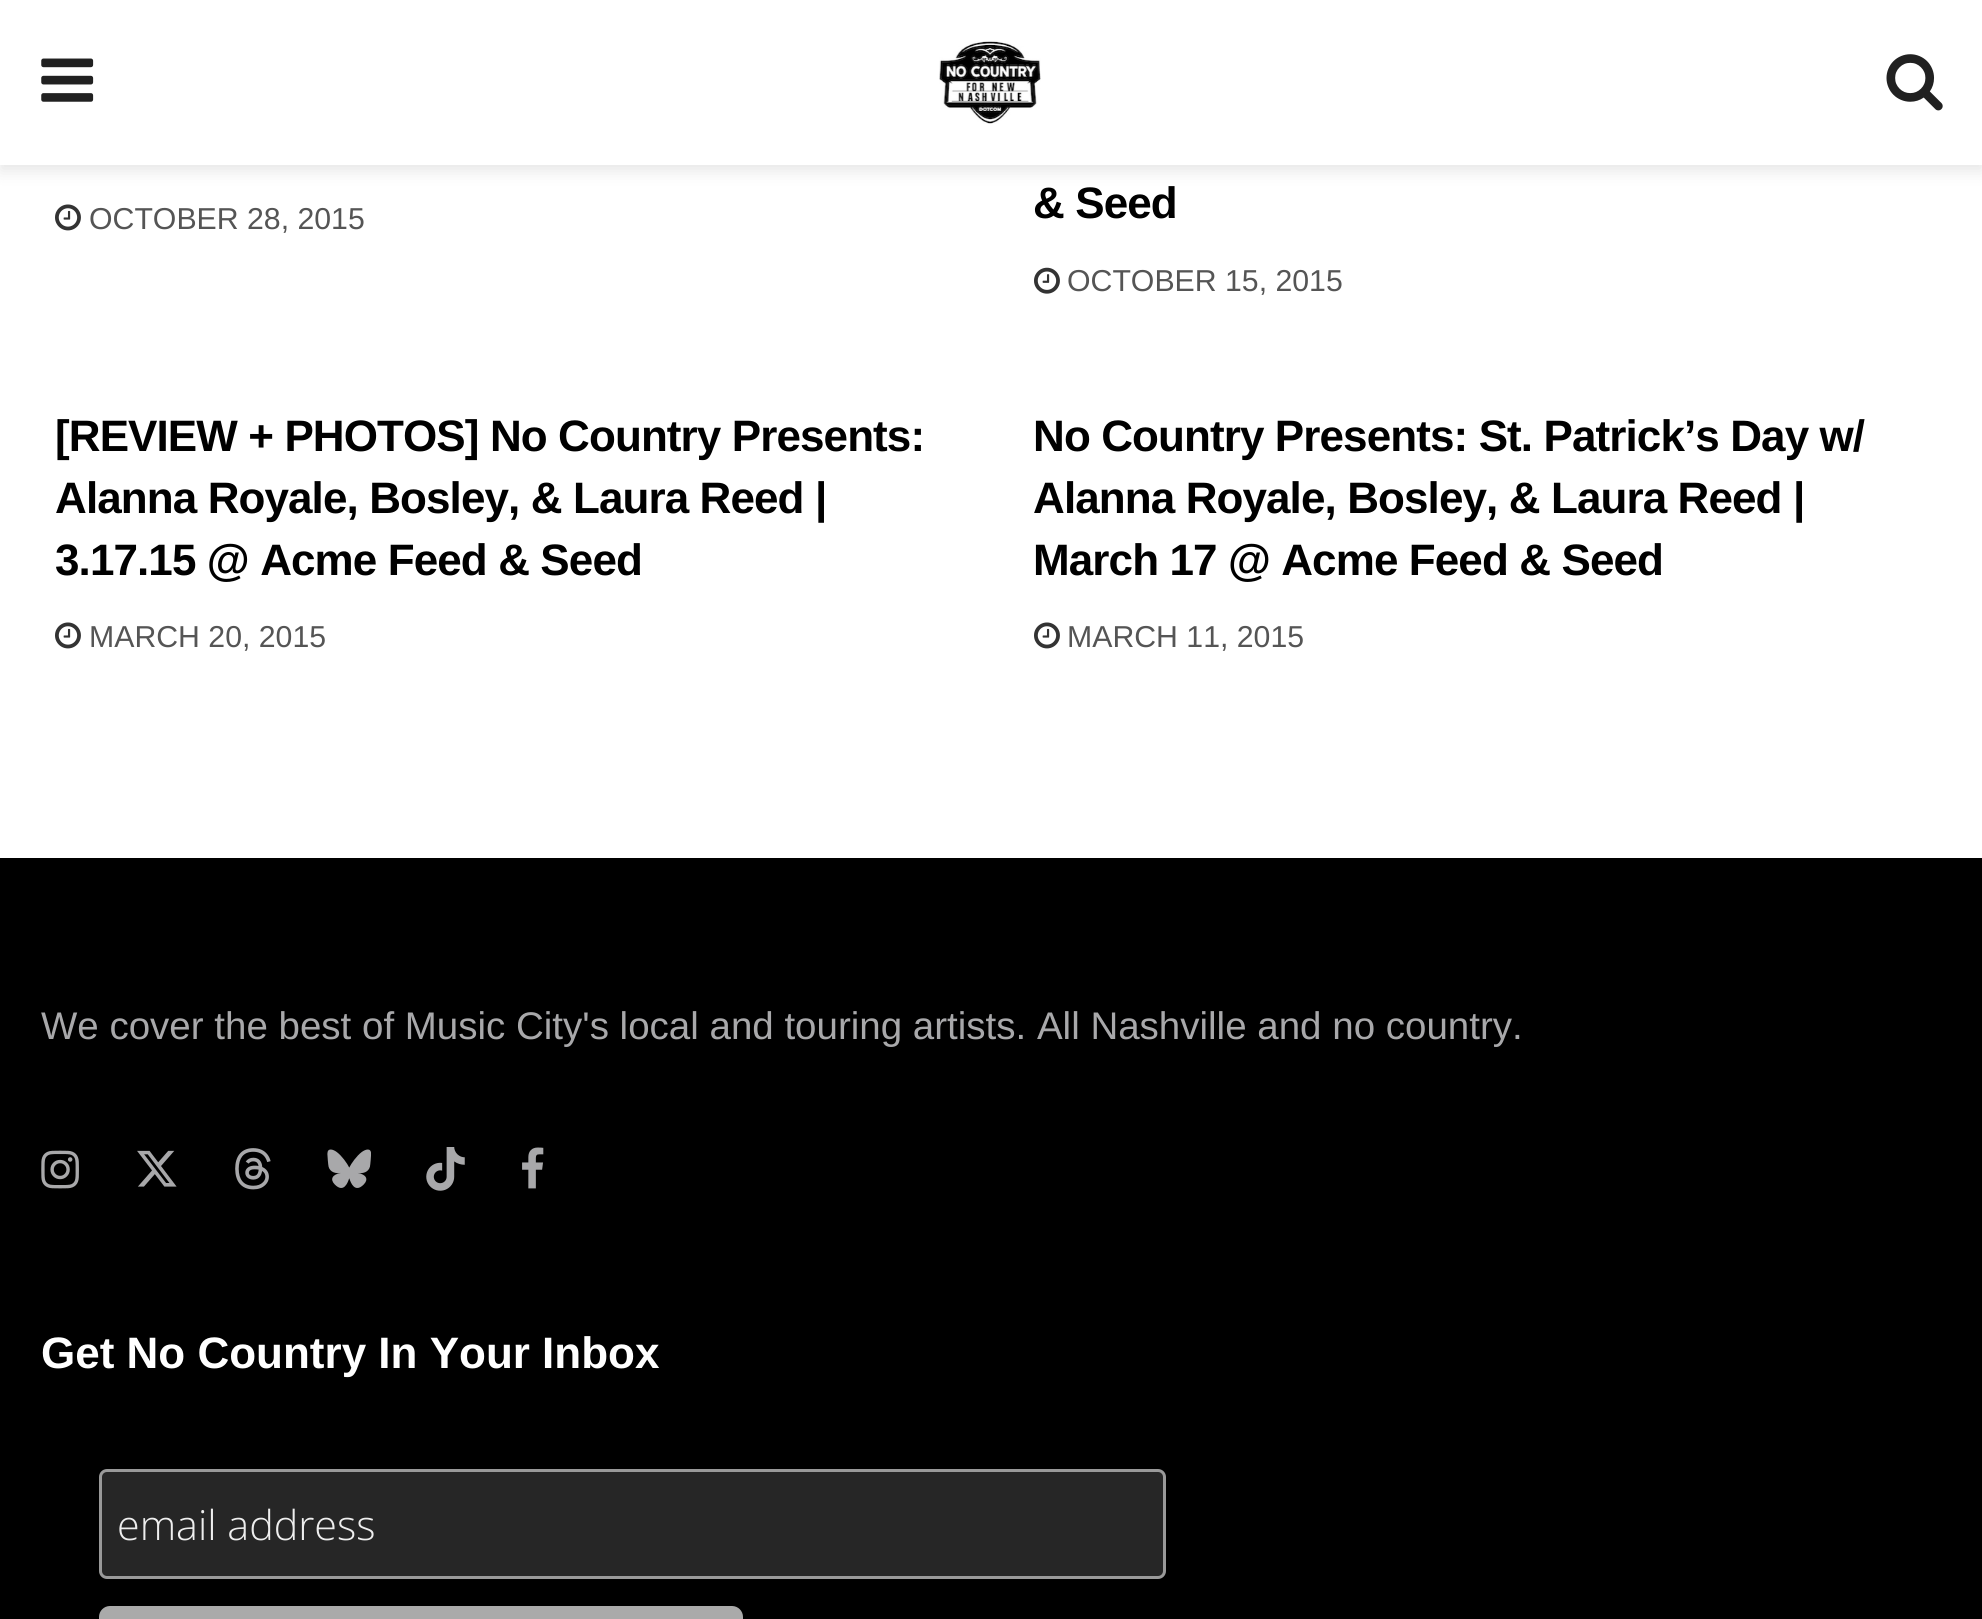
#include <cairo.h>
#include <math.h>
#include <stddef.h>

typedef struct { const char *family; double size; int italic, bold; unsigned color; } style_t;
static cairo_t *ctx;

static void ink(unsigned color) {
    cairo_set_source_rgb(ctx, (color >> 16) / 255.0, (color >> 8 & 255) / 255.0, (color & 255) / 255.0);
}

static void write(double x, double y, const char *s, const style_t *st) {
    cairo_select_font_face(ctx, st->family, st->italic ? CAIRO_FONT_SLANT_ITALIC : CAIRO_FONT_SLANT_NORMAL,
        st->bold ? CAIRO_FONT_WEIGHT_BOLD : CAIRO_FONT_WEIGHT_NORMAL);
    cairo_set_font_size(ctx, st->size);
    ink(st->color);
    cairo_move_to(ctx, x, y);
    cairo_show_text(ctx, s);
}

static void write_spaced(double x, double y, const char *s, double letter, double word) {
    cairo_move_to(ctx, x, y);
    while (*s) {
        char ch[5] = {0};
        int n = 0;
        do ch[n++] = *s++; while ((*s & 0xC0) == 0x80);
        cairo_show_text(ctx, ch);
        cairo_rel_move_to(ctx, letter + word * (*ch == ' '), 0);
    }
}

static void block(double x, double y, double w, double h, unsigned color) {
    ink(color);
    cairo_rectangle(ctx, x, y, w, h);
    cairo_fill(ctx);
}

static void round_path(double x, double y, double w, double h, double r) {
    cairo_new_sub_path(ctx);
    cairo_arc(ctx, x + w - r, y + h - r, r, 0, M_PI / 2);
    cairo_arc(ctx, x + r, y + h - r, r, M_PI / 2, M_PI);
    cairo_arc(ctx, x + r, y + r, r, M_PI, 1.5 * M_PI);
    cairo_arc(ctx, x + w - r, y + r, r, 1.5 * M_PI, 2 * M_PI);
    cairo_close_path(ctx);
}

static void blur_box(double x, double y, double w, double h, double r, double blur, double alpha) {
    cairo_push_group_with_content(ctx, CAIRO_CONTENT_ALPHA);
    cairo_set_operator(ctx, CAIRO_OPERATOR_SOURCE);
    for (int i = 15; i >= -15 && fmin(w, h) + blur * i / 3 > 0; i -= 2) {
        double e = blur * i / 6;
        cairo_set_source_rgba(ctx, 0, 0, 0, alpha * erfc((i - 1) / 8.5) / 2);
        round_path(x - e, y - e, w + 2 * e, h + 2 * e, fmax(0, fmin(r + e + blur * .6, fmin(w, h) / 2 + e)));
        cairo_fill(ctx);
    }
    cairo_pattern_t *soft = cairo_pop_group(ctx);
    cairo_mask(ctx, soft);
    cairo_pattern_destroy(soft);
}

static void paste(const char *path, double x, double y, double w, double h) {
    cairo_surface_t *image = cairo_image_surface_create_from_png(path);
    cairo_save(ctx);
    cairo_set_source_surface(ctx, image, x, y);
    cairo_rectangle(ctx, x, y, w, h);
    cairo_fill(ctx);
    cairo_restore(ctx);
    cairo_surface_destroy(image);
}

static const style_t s1 = {"Liberation Sans", 30.25, 0, 0, 0x555555};
static const style_t s2 = {"Liberation Sans", 38.5, 0, 0, 0xa8a8aa};
static const style_t s3 = {"Liberation Sans", 44, 0, 1, 0xffffff};
static const style_t s4 = {"Open Sans Light", 41.25, 0, 0, 0xeeeeee};

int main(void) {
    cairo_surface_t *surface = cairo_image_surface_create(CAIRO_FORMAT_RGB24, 1982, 1619);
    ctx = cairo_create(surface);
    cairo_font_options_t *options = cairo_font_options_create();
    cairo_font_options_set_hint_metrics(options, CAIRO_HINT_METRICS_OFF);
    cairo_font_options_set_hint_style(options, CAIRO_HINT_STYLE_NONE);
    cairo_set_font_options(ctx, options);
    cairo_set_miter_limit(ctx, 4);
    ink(0xffffff);
    cairo_paint(ctx);
    ink(0x000000);
    blur_box(0, 6, 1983, 165, 0, 8, 0.1);
    block(0, 0, 1982, 165, 0xffffff);
    paste("pic1.png", 41, 58, 53, 44);
    paste("pic2.png", 939, 41, 102, 83);
    paste("pic3.png", 1886, 54, 57, 57);
    paste("pic4.png", 55, 204, 26, 27);
    write(89, 229, "OCTOBER 28, 2015", &s1);
    cairo_select_font_face(ctx, "Liberation Sans", CAIRO_FONT_SLANT_NORMAL, CAIRO_FONT_WEIGHT_BOLD);
    cairo_set_font_size(ctx, 44);
    ink(0x000000);
    write_spaced(1033, 218, "& Seed", -0.9, 0);
    paste("pic5.png", 1034, 267, 26, 27);
    write(1067, 291, "OCTOBER 15, 2015", &s1);
    cairo_select_font_face(ctx, "Liberation Sans", CAIRO_FONT_SLANT_NORMAL, CAIRO_FONT_WEIGHT_BOLD);
    cairo_set_font_size(ctx, 44);
    ink(0x000000);
    write_spaced(55, 451, "[REVIEW + PHOTOS] No Country Presents:", -0.9, 0);
    write_spaced(55, 513, "Alanna Royale, Bosley, & Laura Reed |", -0.9, 0);
    write_spaced(55, 575, "3.17.15 @ Acme Feed & Seed", -0.9, 0);
    paste("pic4.png", 55, 622, 26, 27);
    write(89, 647, "MARCH 20, 2015", &s1);
    cairo_select_font_face(ctx, "Liberation Sans", CAIRO_FONT_SLANT_NORMAL, CAIRO_FONT_WEIGHT_BOLD);
    cairo_set_font_size(ctx, 44);
    ink(0x000000);
    write_spaced(1033, 451, "No Country Presents: St. Patrick’s Day w/", -0.9, 0);
    write_spaced(1033, 513, "Alanna Royale, Bosley, & Laura Reed |", -0.9, 0);
    write_spaced(1033, 575, "March 17 @ Acme Feed & Seed", -0.9, 0);
    paste("pic4.png", 1034, 622, 26, 27);
    write(1067, 647, "MARCH 11, 2015", &s1);
    block(0, 858, 1982, 761, 0x000000);
    write(41, 1039, "We cover the best of Music City's local and touring artists. All Nashville and no country.", &s2);
    paste("pic6.png", 41, 1150, 38, 39);
    paste("pic7.png", 137, 1150, 40, 37);
    paste("pic8.png", 235, 1148, 36, 42);
    paste("pic9.png", 327, 1149, 44, 39);
    paste("pic10.png", 426, 1147, 39, 44);
    paste("pic11.png", 522, 1147, 22, 42);
    write(41, 1368, "Get No Country In Your Inbox", &s3);
    ink(0x262626);
    round_path(100.5, 1470.5, 1064, 107, 6.5);
    cairo_fill_preserve(ctx);
    ink(0x999999);
    cairo_set_line_width(ctx, 3);
    cairo_stroke(ctx);
    write(117, 1540, "email address", &s4);
    ink(0xaaaaaa);
    round_path(99, 1606, 644, 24, 11);
    cairo_fill(ctx);
    cairo_surface_write_to_png(surface, "screenshot.png");
    cairo_font_options_destroy(options);
    cairo_destroy(ctx);
    cairo_surface_destroy(surface);
    return 0;
}
